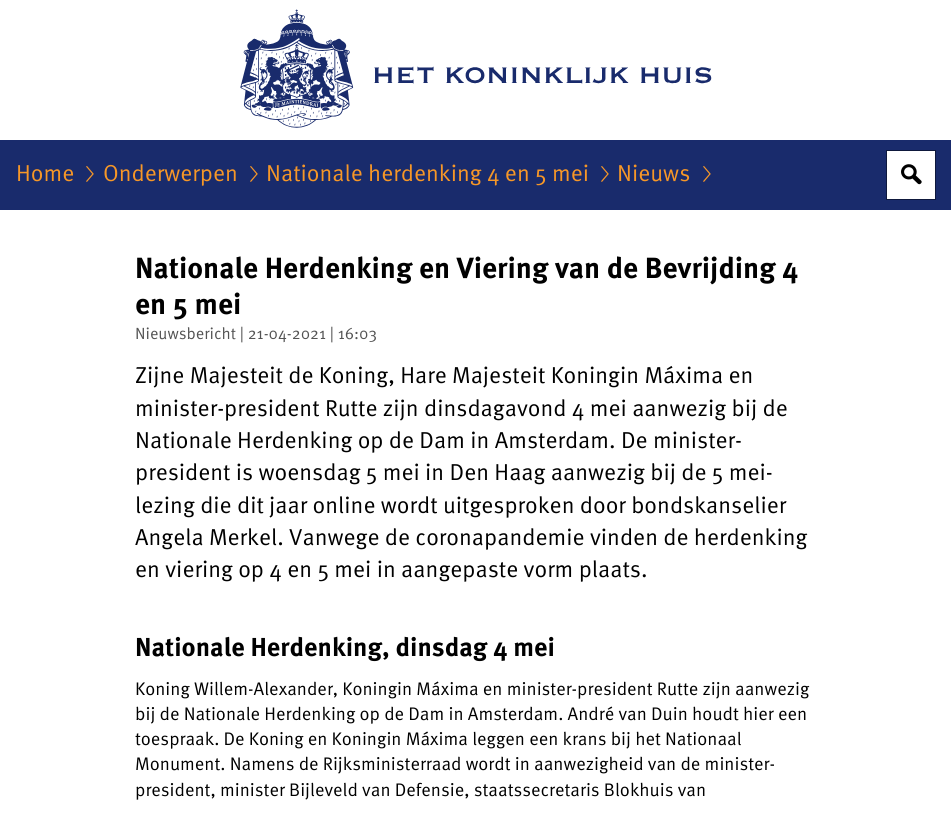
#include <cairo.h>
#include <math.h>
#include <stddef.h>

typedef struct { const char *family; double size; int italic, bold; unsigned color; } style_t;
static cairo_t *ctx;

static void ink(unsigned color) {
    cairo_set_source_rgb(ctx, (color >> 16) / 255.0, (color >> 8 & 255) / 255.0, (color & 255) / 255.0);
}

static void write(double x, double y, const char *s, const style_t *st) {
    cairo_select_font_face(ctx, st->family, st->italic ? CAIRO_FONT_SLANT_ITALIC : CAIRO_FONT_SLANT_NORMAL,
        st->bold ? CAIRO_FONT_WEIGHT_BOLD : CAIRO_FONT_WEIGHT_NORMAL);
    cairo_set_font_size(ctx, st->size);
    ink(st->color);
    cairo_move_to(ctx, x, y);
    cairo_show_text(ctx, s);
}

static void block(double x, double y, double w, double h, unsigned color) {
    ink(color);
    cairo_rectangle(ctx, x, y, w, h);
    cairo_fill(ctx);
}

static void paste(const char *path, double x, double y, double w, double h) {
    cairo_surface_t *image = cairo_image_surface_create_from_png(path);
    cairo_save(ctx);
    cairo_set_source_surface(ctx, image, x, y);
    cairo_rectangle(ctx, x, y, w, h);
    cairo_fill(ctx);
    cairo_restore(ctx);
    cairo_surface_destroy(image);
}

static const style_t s1 = {"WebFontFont", 23.1, 0, 0, 0xf79727};
static const style_t s2 = {"WebFontFont", 29.2, 0, 1, 0x000000};
static const style_t s3 = {"WebFontFont", 16.25, 0, 0, 0x535353};
static const style_t s4 = {"WebFontFont", 23.1, 0, 0, 0x000000};
static const style_t s5 = {"WebFontFont", 26, 0, 1, 0x000000};
static const style_t s6 = {"WebFontFont", 18.25, 0, 0, 0x000000};

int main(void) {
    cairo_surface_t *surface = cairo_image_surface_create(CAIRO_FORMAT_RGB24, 951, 813);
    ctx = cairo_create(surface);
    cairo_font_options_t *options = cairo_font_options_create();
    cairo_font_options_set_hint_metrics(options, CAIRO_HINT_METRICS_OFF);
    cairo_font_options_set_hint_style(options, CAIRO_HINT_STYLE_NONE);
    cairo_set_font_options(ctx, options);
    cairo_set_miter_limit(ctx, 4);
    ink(0xffffff);
    cairo_paint(ctx);
    paste("pic1.png", 240, 9, 472, 119);
    block(0, 140, 951, 70, 0x192b6c);
    write(16, 181, "Home", &s1);
    paste("pic2.png", 86, 166, 8, 16);
    write(103, 181, "Onderwerpen", &s1);
    paste("pic2.png", 250, 166, 8, 16);
    write(266, 181, "Nationale herdenking 4 en 5 mei", &s1);
    paste("pic2.png", 601, 166, 8, 16);
    write(617, 181, "Nieuws", &s1);
    paste("pic2.png", 703, 166, 8, 16);
    ink(0xffffff);
    cairo_rectangle(ctx, 886.5, 150.5, 49, 49);
    cairo_fill_preserve(ctx);
    ink(0x0e183c);
    cairo_set_line_width(ctx, 1);
    cairo_stroke(ctx);
    paste("pic3.png", 901, 164, 21, 21);
    write(135, 278, "Nationale Herdenking en Viering van de Bevrijding 4", &s2);
    write(135, 314, "en 5 mei", &s2);
    write(135, 339, "Nieuwsbericht | 21-04-2021 | 16:03", &s3);
    write(135, 383, "Zijne Majesteit de Koning, Hare Majesteit Koningin Máxima en", &s4);
    write(135, 416, "minister-president Rutte zijn dinsdagavond 4 mei aanwezig bij de", &s4);
    write(135, 448, "Nationale Herdenking op de Dam in Amsterdam. De minister-", &s4);
    write(135, 480, "president is woensdag 5 mei in Den Haag aanwezig bij de 5 mei-", &s4);
    write(135, 513, "lezing die dit jaar online wordt uitgesproken door bondskanselier", &s4);
    write(135, 545, "Angela Merkel. Vanwege de coronapandemie vinden de herdenking", &s4);
    write(135, 577, "en viering op 4 en 5 mei in aangepaste vorm plaats.", &s4);
    write(135, 656, "Nationale Herdenking, dinsdag 4 mei", &s5);
    write(135, 695, "Koning Willem-Alexander, Koningin Máxima en minister-president Rutte zijn aanwezig", &s6);
    write(135, 720, "bij de Nationale Herdenking op de Dam in Amsterdam. André van Duin houdt hier een", &s6);
    write(135, 745, "toespraak. De Koning en Koningin Máxima leggen een krans bij het Nationaal", &s6);
    write(135, 770, "Monument. Namens de Rijksministerraad wordt in aanwezigheid van de minister-", &s6);
    write(135, 796, "president, minister Bijleveld van Defensie, staatssecretaris Blokhuis van", &s6);
    cairo_surface_write_to_png(surface, "screenshot.png");
    cairo_font_options_destroy(options);
    cairo_destroy(ctx);
    cairo_surface_destroy(surface);
    return 0;
}
